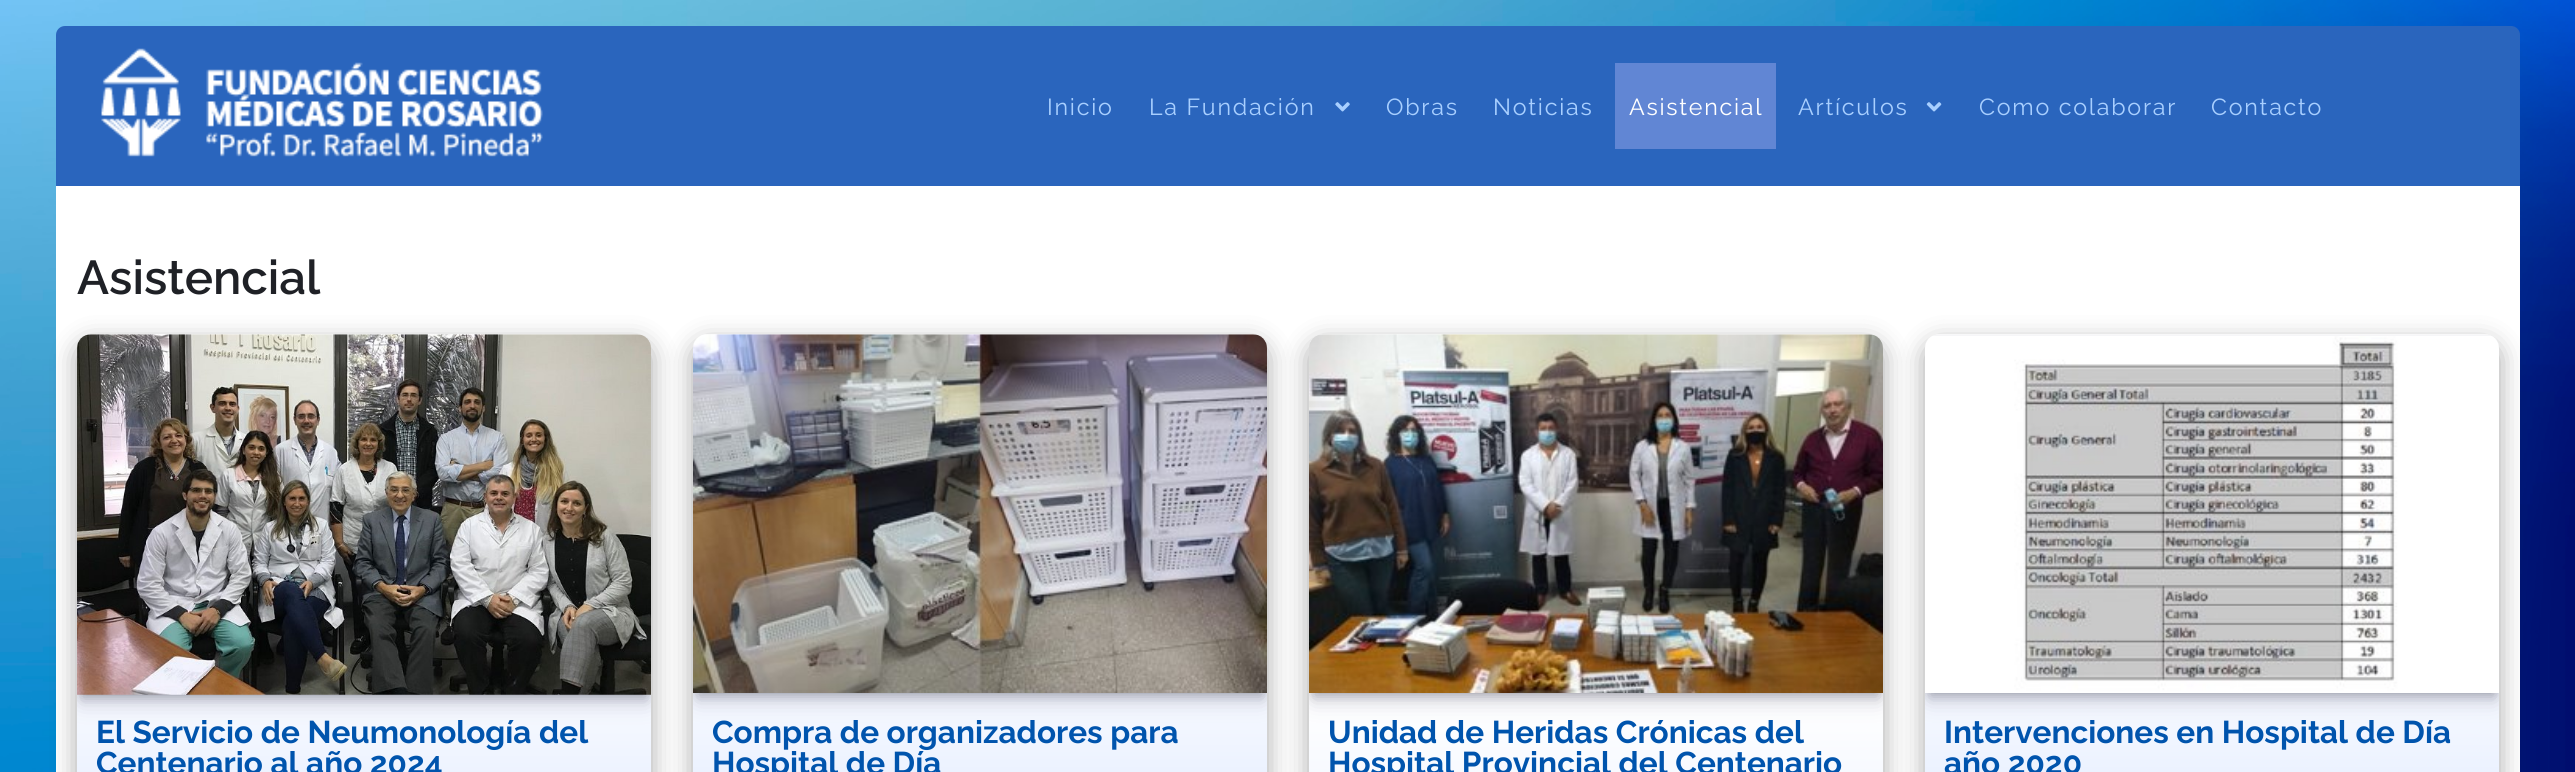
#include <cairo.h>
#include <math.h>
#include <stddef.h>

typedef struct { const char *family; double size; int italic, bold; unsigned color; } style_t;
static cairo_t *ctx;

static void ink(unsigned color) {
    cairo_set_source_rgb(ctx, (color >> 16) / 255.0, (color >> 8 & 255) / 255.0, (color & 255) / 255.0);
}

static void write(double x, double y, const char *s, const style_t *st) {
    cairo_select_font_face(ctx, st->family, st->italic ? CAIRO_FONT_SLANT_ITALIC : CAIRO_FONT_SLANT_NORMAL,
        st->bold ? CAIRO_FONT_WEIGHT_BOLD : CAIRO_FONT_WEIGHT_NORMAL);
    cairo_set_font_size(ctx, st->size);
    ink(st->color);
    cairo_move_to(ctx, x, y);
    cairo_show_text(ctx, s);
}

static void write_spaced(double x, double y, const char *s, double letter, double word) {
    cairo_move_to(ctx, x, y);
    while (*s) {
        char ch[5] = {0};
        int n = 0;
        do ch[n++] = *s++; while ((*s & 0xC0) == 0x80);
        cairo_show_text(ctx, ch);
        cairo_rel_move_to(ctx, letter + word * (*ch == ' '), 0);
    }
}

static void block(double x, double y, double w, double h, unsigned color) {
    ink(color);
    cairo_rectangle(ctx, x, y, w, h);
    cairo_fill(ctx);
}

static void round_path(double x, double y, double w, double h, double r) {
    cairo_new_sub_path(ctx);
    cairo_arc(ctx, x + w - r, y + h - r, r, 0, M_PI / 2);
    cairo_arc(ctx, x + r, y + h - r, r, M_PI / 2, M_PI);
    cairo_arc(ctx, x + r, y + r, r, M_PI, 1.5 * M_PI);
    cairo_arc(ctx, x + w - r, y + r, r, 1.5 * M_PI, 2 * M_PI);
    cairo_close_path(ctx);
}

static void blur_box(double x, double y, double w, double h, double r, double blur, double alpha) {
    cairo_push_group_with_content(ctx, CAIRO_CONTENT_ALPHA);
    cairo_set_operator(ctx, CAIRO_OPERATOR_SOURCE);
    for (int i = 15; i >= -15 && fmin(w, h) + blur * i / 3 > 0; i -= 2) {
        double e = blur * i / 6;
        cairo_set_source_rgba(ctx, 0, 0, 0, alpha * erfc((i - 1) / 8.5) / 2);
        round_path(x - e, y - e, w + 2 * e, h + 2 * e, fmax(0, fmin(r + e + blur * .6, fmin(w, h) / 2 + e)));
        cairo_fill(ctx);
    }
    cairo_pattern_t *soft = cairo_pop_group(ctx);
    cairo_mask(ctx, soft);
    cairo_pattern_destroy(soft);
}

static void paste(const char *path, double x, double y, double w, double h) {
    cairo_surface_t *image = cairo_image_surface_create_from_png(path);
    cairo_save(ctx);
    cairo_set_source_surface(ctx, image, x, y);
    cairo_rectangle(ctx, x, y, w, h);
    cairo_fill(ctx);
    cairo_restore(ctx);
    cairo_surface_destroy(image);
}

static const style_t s1 = {"Raleway SemiBold", 47.5, 0, 0, 0x1f2126};
static const style_t s2 = {"Raleway", 31.5, 0, 1, 0x0054ad};

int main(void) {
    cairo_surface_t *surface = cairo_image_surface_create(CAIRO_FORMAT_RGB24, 2575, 772);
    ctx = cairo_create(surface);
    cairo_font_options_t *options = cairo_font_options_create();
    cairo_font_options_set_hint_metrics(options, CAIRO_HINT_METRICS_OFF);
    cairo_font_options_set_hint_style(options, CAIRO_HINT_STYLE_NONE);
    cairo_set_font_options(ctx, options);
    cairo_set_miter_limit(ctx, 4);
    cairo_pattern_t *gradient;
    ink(0xffffff);
    cairo_paint(ctx);
    paste("pic1.png", 0, 0, 2575, 772);
    ink(0x2a65bd);
    cairo_new_path(ctx);
    cairo_move_to(ctx, 65, 26);
    cairo_line_to(ctx, 2511, 26);
    cairo_curve_to(ctx, 2516, 26, 2520, 30, 2520, 35);
    cairo_line_to(ctx, 2520, 186);
    cairo_line_to(ctx, 56, 186);
    cairo_line_to(ctx, 56, 35);
    cairo_curve_to(ctx, 56, 30, 60, 26, 65, 26);
    cairo_close_path(ctx);
    cairo_fill(ctx);
    paste("pic2.png", 101, 48, 442, 109);
    cairo_select_font_face(ctx, "Raleway", CAIRO_FONT_SLANT_NORMAL, CAIRO_FONT_WEIGHT_NORMAL);
    cairo_set_font_size(ctx, 23.25);
    ink(0xa8cfff);
    write_spaced(1047, 115, "Inicio", 1.75, 0);
    write_spaced(1149, 115, "La Fundación", 1.75, 0);
    paste("pic3.png", 1335, 102, 15, 10);
    write_spaced(1386, 115, "Obras", 1.75, 0);
    write_spaced(1493, 115, "Noticias", 1.75, 0);
    block(1615, 63, 161, 86, 0x6186d4);
    ink(0xffffff);
    write_spaced(1629, 115, "Asistencial", 1.75, 0);
    ink(0xa8cfff);
    write_spaced(1798, 115, "Artículos", 1.75, 0);
    paste("pic4.png", 1926, 102, 16, 10);
    write_spaced(1979, 115, "Como colaborar", 1.75, 0);
    write_spaced(2211, 115, "Contacto", 1.75, 0);
    block(56, 186, 2464, 586, 0xffffff);
    write(77, 294, "Asistencial", &s1);
    ink(0x000000);
    blur_box(77, 343, 574, 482, 14, 13, 0.35);
    gradient = cairo_pattern_create_linear(364, 334, 364, 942);
    cairo_pattern_add_color_stop_rgba(gradient, 0, 1, 1, 1, 1);
    cairo_pattern_add_color_stop_rgba(gradient, 0.5, 1, 1, 1, 1);
    cairo_pattern_add_color_stop_rgba(gradient, 1, 0.843, 0.894, 1, 1);
    cairo_set_source(ctx, gradient);
    cairo_pattern_destroy(gradient);
    round_path(77, 334, 574, 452, 14);
    cairo_fill(ctx);
    cairo_save(ctx);
    round_path(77, 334, 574, 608, 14);
    cairo_clip(ctx);
    ink(0x000000);
    blur_box(82, 345, 564, 350, 0, 6, 0.3);
    ink(0x32325d);
    blur_box(81, 348, 567, 354, 0, 10.5, 0.25);
    cairo_restore(ctx);
    paste("pic5.png", 77, 334, 574, 361);
    write(96, 743, "El Servicio de Neumonología del", &s2);
    write(96, 774, "Centenario al año 2024", &s2);
    ink(0x000000);
    blur_box(693, 343, 574, 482, 14, 13, 0.35);
    gradient = cairo_pattern_create_linear(980, 334, 980, 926);
    cairo_pattern_add_color_stop_rgba(gradient, 0, 1, 1, 1, 1);
    cairo_pattern_add_color_stop_rgba(gradient, 0.5, 1, 1, 1, 1);
    cairo_pattern_add_color_stop_rgba(gradient, 1, 0.843, 0.894, 1, 1);
    cairo_set_source(ctx, gradient);
    cairo_pattern_destroy(gradient);
    round_path(693, 334, 574, 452, 14);
    cairo_fill(ctx);
    cairo_save(ctx);
    round_path(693, 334, 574, 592, 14);
    cairo_clip(ctx);
    ink(0x000000);
    blur_box(698, 345, 564, 348, 0, 6, 0.3);
    ink(0x32325d);
    blur_box(697, 348, 567, 352, 0, 10.5, 0.25);
    cairo_restore(ctx);
    paste("pic6.png", 693, 334, 574, 359);
    write(712, 743, "Compra de organizadores para", &s2);
    write(712, 774, "Hospital de Día", &s2);
    ink(0x000000);
    blur_box(1309, 343, 574, 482, 14, 13, 0.35);
    gradient = cairo_pattern_create_linear(1596, 334, 1596, 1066);
    cairo_pattern_add_color_stop_rgba(gradient, 0, 1, 1, 1, 1);
    cairo_pattern_add_color_stop_rgba(gradient, 0.5, 1, 1, 1, 1);
    cairo_pattern_add_color_stop_rgba(gradient, 1, 0.843, 0.894, 1, 1);
    cairo_set_source(ctx, gradient);
    cairo_pattern_destroy(gradient);
    round_path(1309, 334, 574, 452, 14);
    cairo_fill(ctx);
    cairo_save(ctx);
    round_path(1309, 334, 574, 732, 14);
    cairo_clip(ctx);
    ink(0x000000);
    blur_box(1314, 345, 564, 348, 0, 6, 0.3);
    ink(0x32325d);
    blur_box(1313, 348, 567, 352, 0, 10.5, 0.25);
    cairo_restore(ctx);
    paste("pic7.png", 1309, 334, 574, 359);
    write(1328, 743, "Unidad de Heridas Crónicas del", &s2);
    write(1328, 774, "Hospital Provincial del Centenario", &s2);
    ink(0x000000);
    blur_box(1925, 343, 574, 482, 14, 13, 0.35);
    gradient = cairo_pattern_create_linear(2212, 334, 2212, 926);
    cairo_pattern_add_color_stop_rgba(gradient, 0, 1, 1, 1, 1);
    cairo_pattern_add_color_stop_rgba(gradient, 0.5, 1, 1, 1, 1);
    cairo_pattern_add_color_stop_rgba(gradient, 1, 0.843, 0.894, 1, 1);
    cairo_set_source(ctx, gradient);
    cairo_pattern_destroy(gradient);
    round_path(1925, 334, 574, 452, 14);
    cairo_fill(ctx);
    cairo_save(ctx);
    round_path(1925, 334, 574, 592, 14);
    cairo_clip(ctx);
    ink(0x000000);
    blur_box(1930, 345, 564, 348, 0, 6, 0.3);
    ink(0x32325d);
    blur_box(1929, 348, 567, 352, 0, 10.5, 0.25);
    cairo_restore(ctx);
    paste("pic8.png", 1925, 336, 574, 357);
    write(1944, 743, "Intervenciones en Hospital de Día", &s2);
    write(1944, 774, "año 2020", &s2);
    cairo_surface_write_to_png(surface, "screenshot.png");
    cairo_font_options_destroy(options);
    cairo_destroy(ctx);
    cairo_surface_destroy(surface);
    return 0;
}
